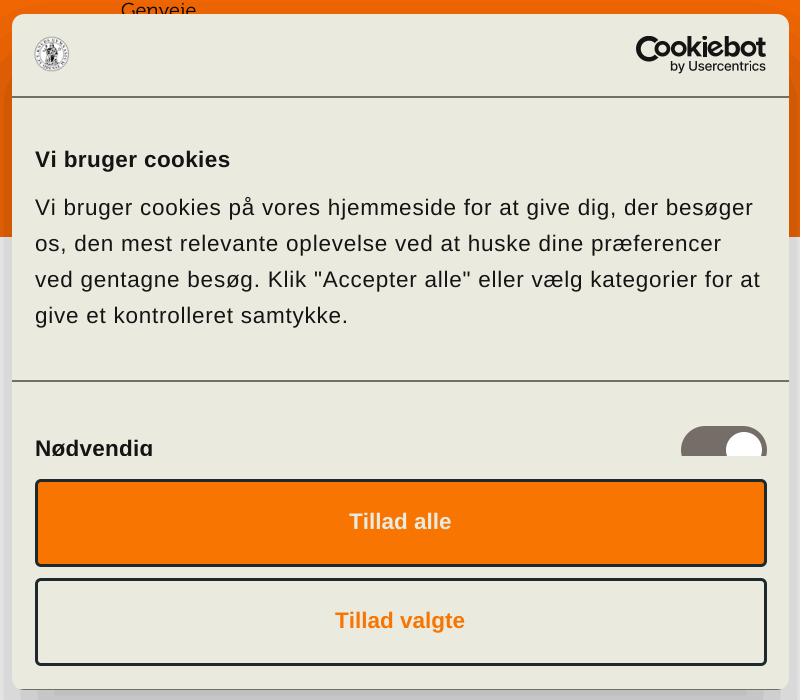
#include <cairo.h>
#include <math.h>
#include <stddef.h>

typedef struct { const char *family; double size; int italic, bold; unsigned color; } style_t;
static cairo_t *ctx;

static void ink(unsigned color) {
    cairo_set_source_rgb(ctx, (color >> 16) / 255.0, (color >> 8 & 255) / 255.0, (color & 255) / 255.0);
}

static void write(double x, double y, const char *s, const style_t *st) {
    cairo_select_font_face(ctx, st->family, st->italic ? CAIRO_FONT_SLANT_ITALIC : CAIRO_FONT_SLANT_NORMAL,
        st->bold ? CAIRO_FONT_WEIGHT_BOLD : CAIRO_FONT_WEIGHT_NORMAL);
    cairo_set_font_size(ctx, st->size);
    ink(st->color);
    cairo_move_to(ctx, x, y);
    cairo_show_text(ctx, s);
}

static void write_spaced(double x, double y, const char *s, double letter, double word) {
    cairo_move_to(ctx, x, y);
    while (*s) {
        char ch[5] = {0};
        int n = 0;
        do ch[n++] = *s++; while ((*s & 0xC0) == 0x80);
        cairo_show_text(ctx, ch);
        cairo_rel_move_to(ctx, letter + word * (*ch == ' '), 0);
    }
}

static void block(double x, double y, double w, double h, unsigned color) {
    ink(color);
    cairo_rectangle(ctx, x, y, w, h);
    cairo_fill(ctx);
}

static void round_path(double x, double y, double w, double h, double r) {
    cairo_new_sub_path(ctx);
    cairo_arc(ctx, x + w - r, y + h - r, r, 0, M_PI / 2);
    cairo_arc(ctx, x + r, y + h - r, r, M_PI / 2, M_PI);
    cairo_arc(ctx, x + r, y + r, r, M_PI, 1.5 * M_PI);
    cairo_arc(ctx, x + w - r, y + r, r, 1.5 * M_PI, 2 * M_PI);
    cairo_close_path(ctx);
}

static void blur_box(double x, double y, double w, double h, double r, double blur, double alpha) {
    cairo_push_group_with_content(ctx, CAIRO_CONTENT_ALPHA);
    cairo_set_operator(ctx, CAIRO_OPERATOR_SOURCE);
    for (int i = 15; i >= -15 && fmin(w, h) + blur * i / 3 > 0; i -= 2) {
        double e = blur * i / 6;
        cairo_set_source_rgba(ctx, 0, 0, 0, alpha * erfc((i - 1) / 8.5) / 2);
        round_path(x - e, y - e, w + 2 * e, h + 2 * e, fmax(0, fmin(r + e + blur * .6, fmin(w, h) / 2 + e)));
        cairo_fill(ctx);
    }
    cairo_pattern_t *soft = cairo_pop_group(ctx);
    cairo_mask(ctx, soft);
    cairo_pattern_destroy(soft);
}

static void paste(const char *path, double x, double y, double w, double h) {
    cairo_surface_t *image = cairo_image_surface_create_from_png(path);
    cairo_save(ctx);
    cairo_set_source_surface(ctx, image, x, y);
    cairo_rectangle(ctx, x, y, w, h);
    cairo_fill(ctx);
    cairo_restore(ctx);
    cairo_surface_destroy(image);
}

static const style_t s1 = {"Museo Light", 20, 0, 0, 0x000000};
static const style_t s2 = {"Liberation Sans", 22.5, 0, 1, 0xeaeadf};
static const style_t s3 = {"Liberation Sans", 22.5, 0, 1, 0xf87501};

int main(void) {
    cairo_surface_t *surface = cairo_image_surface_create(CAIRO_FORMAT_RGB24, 800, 700);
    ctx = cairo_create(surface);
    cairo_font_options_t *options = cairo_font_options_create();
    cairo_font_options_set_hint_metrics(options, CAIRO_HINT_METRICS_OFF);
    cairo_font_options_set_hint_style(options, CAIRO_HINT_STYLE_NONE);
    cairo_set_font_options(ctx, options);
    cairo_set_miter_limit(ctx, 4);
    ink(0xffffff);
    cairo_paint(ctx);
    block(0, 0, 800, 237, 0xf76903);
    write(121, 17, "Genveje", &s1);
    ink(0x000000);
    blur_box(12, 62, 777, 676, 12, 51, 0.3);
    ink(0xeaeadf);
    round_path(12, 14, 777, 676, 12);
    cairo_fill(ctx);
    block(12, 96, 777, 2, 0x756e68);
    paste("pic1.png", 34, 36, 35, 36);
    paste("pic2.png", 636, 36, 130, 38);
    block(12, 380, 777, 2, 0x756e68);
    cairo_select_font_face(ctx, "Liberation Sans", CAIRO_FONT_SLANT_NORMAL, CAIRO_FONT_WEIGHT_BOLD);
    cairo_set_font_size(ctx, 22.5);
    ink(0x141414);
    write_spaced(35, 167, "Vi bruger cookies", 0.4, 0);
    cairo_select_font_face(ctx, "Liberation Sans", CAIRO_FONT_SLANT_NORMAL, CAIRO_FONT_WEIGHT_NORMAL);
    write_spaced(35, 215, "Vi bruger cookies på vores hjemmeside for at give dig, der besøger", 0.75, 0);
    write_spaced(35, 251, "os, den mest relevante oplevelse ved at huske dine præferencer", 0.75, 0);
    write_spaced(35, 287, "ved gentagne besøg. Klik \"Accepter alle\" eller vælg kategorier for at", 0.75, 0);
    write_spaced(35, 323, "give et kontrolleret samtykke.", 0.75, 0);
    cairo_save(ctx);
    cairo_rectangle(ctx, 12, 98, 777, 358);
    cairo_clip(ctx);
    cairo_select_font_face(ctx, "Liberation Sans", CAIRO_FONT_SLANT_NORMAL, CAIRO_FONT_WEIGHT_BOLD);
    write_spaced(35, 456, "Nødvendig", 0.25, 0);
    ink(0x756e68);
    round_path(681, 426, 86, 48, 24);
    cairo_fill(ctx);
    ink(0xffffff);
    cairo_arc(ctx, 744, 450, 18, 0, 2 * M_PI);
    cairo_fill(ctx);
    cairo_restore(ctx);
    cairo_save(ctx);
    round_path(12, 14, 777, 676, 12);
    cairo_clip(ctx);
    block(12, 689, 777, 1, 0x756e68);
    cairo_restore(ctx);
    ink(0xf87501);
    round_path(36.5, 480.5, 729, 85, 4.5);
    cairo_fill_preserve(ctx);
    ink(0x1d292c);
    cairo_set_line_width(ctx, 3);
    cairo_stroke(ctx);
    write(349, 529, "Tillad alle", &s2);
    round_path(36.5, 579.5, 729, 85, 4.5);
    ink(0x1d292c);
    cairo_stroke(ctx);
    write(335, 628, "Tillad valgte", &s3);
    cairo_surface_write_to_png(surface, "screenshot.png");
    cairo_font_options_destroy(options);
    cairo_destroy(ctx);
    cairo_surface_destroy(surface);
    return 0;
}
